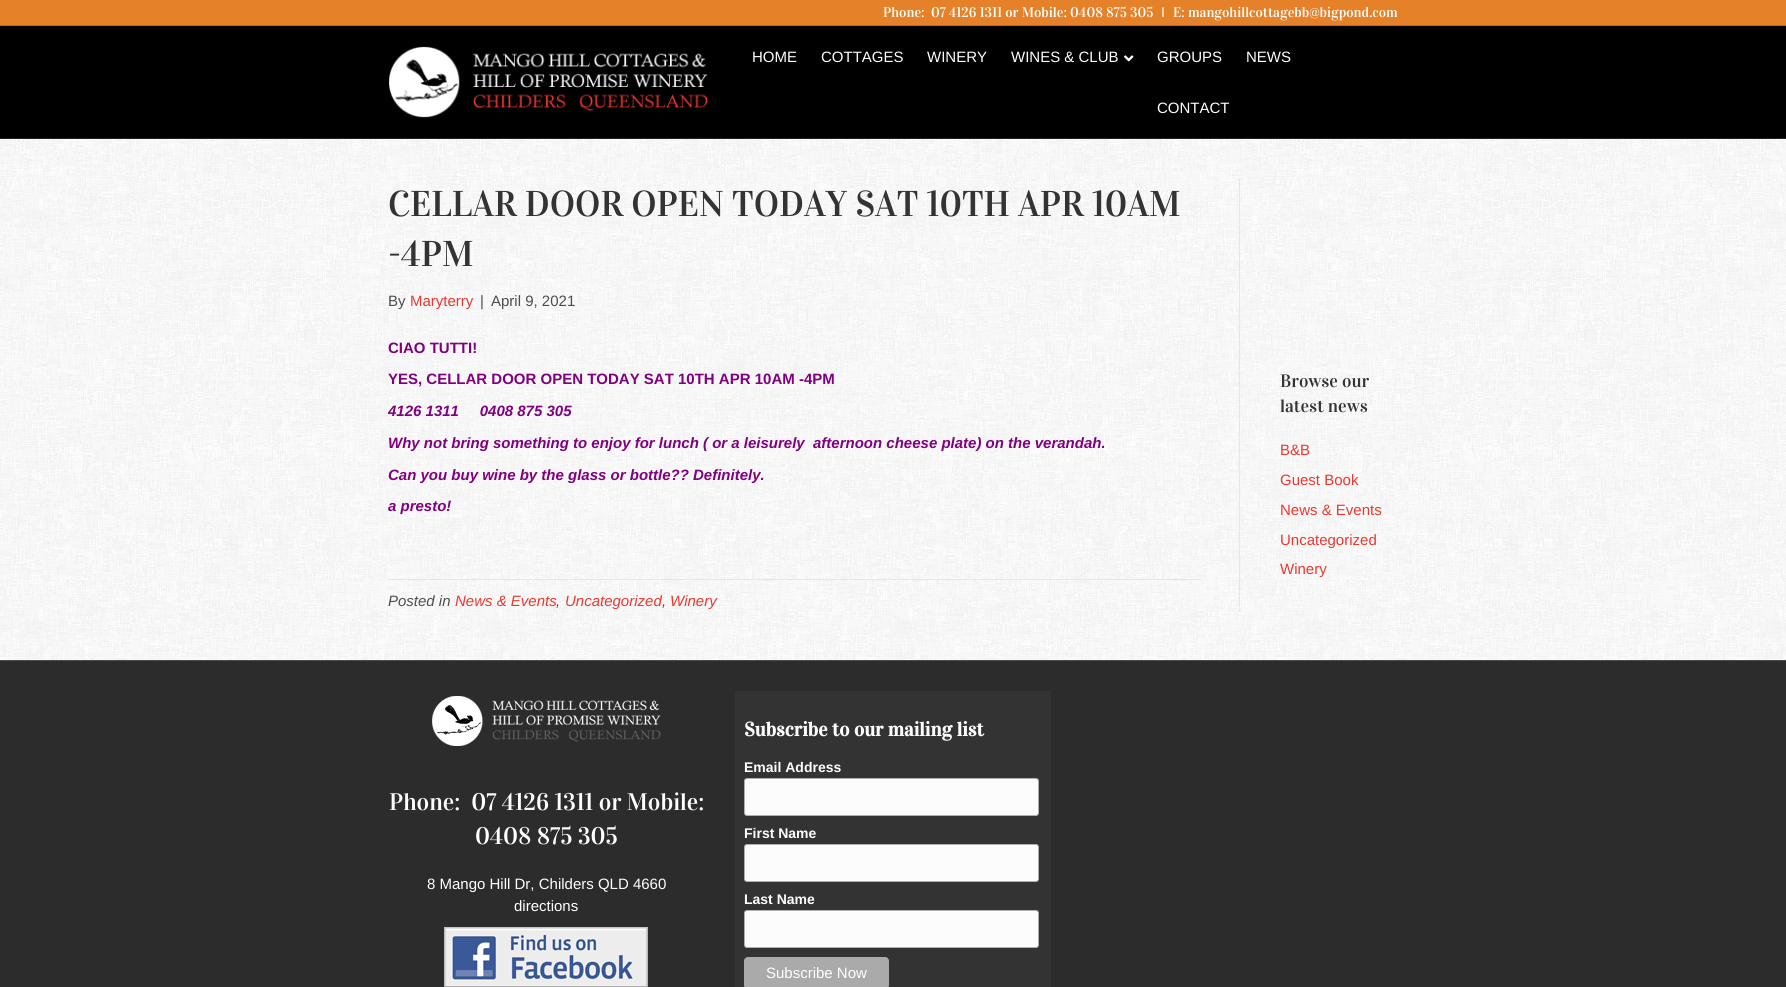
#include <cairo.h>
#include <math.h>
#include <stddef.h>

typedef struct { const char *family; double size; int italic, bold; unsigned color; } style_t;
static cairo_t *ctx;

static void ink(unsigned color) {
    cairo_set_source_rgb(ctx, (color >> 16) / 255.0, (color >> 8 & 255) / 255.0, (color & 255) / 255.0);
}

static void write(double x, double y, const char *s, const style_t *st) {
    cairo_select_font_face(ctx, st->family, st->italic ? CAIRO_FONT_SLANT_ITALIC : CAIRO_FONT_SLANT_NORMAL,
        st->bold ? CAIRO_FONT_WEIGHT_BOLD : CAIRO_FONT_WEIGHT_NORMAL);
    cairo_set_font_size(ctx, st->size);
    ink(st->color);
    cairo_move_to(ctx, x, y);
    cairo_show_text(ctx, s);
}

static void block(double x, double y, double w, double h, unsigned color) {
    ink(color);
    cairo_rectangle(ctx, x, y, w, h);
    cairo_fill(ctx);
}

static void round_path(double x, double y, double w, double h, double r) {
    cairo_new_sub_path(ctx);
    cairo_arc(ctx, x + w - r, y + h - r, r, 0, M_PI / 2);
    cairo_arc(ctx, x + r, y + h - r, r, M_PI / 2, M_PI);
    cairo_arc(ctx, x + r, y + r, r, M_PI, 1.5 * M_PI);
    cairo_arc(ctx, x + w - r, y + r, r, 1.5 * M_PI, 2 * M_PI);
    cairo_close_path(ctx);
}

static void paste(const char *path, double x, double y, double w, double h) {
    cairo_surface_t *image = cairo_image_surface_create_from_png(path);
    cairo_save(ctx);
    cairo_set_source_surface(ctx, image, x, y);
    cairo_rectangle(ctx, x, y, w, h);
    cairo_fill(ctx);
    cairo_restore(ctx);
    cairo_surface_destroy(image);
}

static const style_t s1 = {"Vidaloka", 14, 0, 0, 0xffffff};
static const style_t s2 = {"Liberation Sans", 14, 0, 0, 0xffffff};
static const style_t s3 = {"Liberation Sans", 15, 0, 0, 0xffffff};
static const style_t s4 = {"Vidaloka", 36, 0, 0, 0x333333};
static const style_t s5 = {"Liberation Sans", 15, 0, 0, 0x4d4d4d};
static const style_t s6 = {"Liberation Sans", 15, 0, 0, 0xe93830};
static const style_t s7 = {"Liberation Sans", 15, 0, 1, 0x800080};
static const style_t s8 = {"Liberation Sans", 15, 1, 1, 0x800080};
static const style_t s9 = {"Liberation Sans", 15, 1, 0, 0x4d4d4d};
static const style_t s10 = {"Liberation Sans", 15, 1, 0, 0xe93830};
static const style_t s11 = {"Vidaloka", 18, 0, 0, 0x333333};
static const style_t s12 = {"Vidaloka", 24, 0, 0, 0xffffff};
static const style_t s13 = {"Vidaloka", 19.6, 0, 1, 0xffffff};
static const style_t s14 = {"Liberation Sans", 14, 0, 1, 0xffffff};

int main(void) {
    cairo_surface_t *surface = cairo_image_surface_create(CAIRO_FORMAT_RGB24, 1786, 987);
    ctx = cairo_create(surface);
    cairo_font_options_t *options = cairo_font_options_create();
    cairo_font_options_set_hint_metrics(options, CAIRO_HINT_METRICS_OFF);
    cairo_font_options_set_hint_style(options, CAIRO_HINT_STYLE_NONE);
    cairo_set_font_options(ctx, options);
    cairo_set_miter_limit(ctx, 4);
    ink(0xe58129);
    cairo_paint(ctx);
    block(0, 25, 1786, 1, 0xc36818);
    write(883, 17, "Phone:  07 4126 1311 or Mobile: 0408 875 305", &s1);
    write(1161, 17, "I", &s2);
    write(1173, 17, "E: mangohillcottagebb@bigpond.com", &s1);
    block(0, 26, 1786, 112, 0x000000);
    block(0, 138, 1786, 1, 0x212121);
    paste("pic1.png", 389, 46, 319, 72);
    write(752, 62, "HOME", &s3);
    write(821, 62, "COTTAGES", &s3);
    write(927, 62, "WINERY", &s3);
    write(1011, 62, "WINES & CLUB", &s3);
    paste("pic2.png", 1124, 55, 10, 7);
    write(1157, 62, "GROUPS", &s3);
    write(1246, 62, "NEWS", &s3);
    write(1157, 113, "CONTACT", &s3);
    paste("pic3.png", 0, 139, 1786, 521);
    block(1239, 179, 1, 433, 0xe6e6e6);
    write(388, 216, "CELLAR DOOR OPEN TODAY SAT 10TH APR 10AM", &s4);
    write(388, 266, "-4PM", &s4);
    write(388, 306, "By", &s5);
    write(410, 306, "Maryterry", &s6);
    write(480, 306, "|", &s5);
    write(491, 306, "April 9, 2021", &s5);
    write(388, 353, "CIAO TUTTI!", &s7);
    write(388, 384, "YES, CELLAR DOOR OPEN TODAY SAT 10TH APR 10AM -4PM", &s7);
    write(388, 416, "4126 1311     0408 875 305", &s8);
    write(388, 448, "Why not bring something to enjoy for lunch ( or a leisurely  afternoon cheese plate) on the verandah.", &s8);
    write(388, 480, "Can you buy wine by the glass or bottle?\077 Definitely.", &s8);
    write(388, 511, "a presto!", &s8);
    block(388, 579, 811, 1, 0xe6e6e6);
    write(388, 606, "Posted in", &s9);
    write(455, 606, "News & Events", &s10);
    write(556, 606, ",", &s9);
    write(565, 606, "Uncategorized", &s10);
    write(662, 606, ",", &s9);
    write(670, 606, "Winery", &s10);
    write(1280, 387, "Browse our", &s11);
    write(1280, 412, "latest news", &s11);
    write(1280, 455, "B&B", &s6);
    write(1280, 485, "Guest Book", &s6);
    write(1280, 515, "News & Events", &s6);
    write(1280, 545, "Uncategorized", &s6);
    write(1280, 574, "Winery", &s6);
    block(0, 661, 1786, 326, 0x2c2c2c);
    block(0, 660, 1786, 1, 0x4d4d4d);
    paste("pic4.png", 432, 696, 229, 50);
    write(389, 810, "Phone:  07 4126 1311 or Mobile:", &s12);
    write(475, 844, "0408 875 305", &s12);
    write(427, 889, "8 Mango Hill Dr, Childers QLD 4660", &s3);
    write(514, 911, "directions", &s3);
    paste("pic5.png", 444, 927, 204, 60);
    block(735, 691, 316, 296, 0x333333);
    write(744, 736, "Subscribe to our mailing list", &s13);
    write(744, 772, "Email Address", &s14);
    ink(0xfcfcfc);
    round_path(744.5, 778.5, 294, 37, 2.5);
    cairo_fill_preserve(ctx);
    ink(0xabb0b2);
    cairo_set_line_width(ctx, 1);
    cairo_stroke(ctx);
    write(744, 838, "First Name", &s14);
    ink(0xfcfcfc);
    round_path(744.5, 844.5, 294, 37, 2.5);
    cairo_fill_preserve(ctx);
    ink(0xabb0b2);
    cairo_stroke(ctx);
    write(744, 904, "Last Name", &s14);
    ink(0xfcfcfc);
    round_path(744.5, 910.5, 294, 37, 2.5);
    cairo_fill_preserve(ctx);
    ink(0xabb0b2);
    cairo_stroke(ctx);
    ink(0xaaaaaa);
    round_path(744, 957, 145, 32, 4);
    cairo_fill(ctx);
    write(766, 978, "Subscribe Now", &s3);
    cairo_surface_write_to_png(surface, "screenshot.png");
    cairo_font_options_destroy(options);
    cairo_destroy(ctx);
    cairo_surface_destroy(surface);
    return 0;
}
